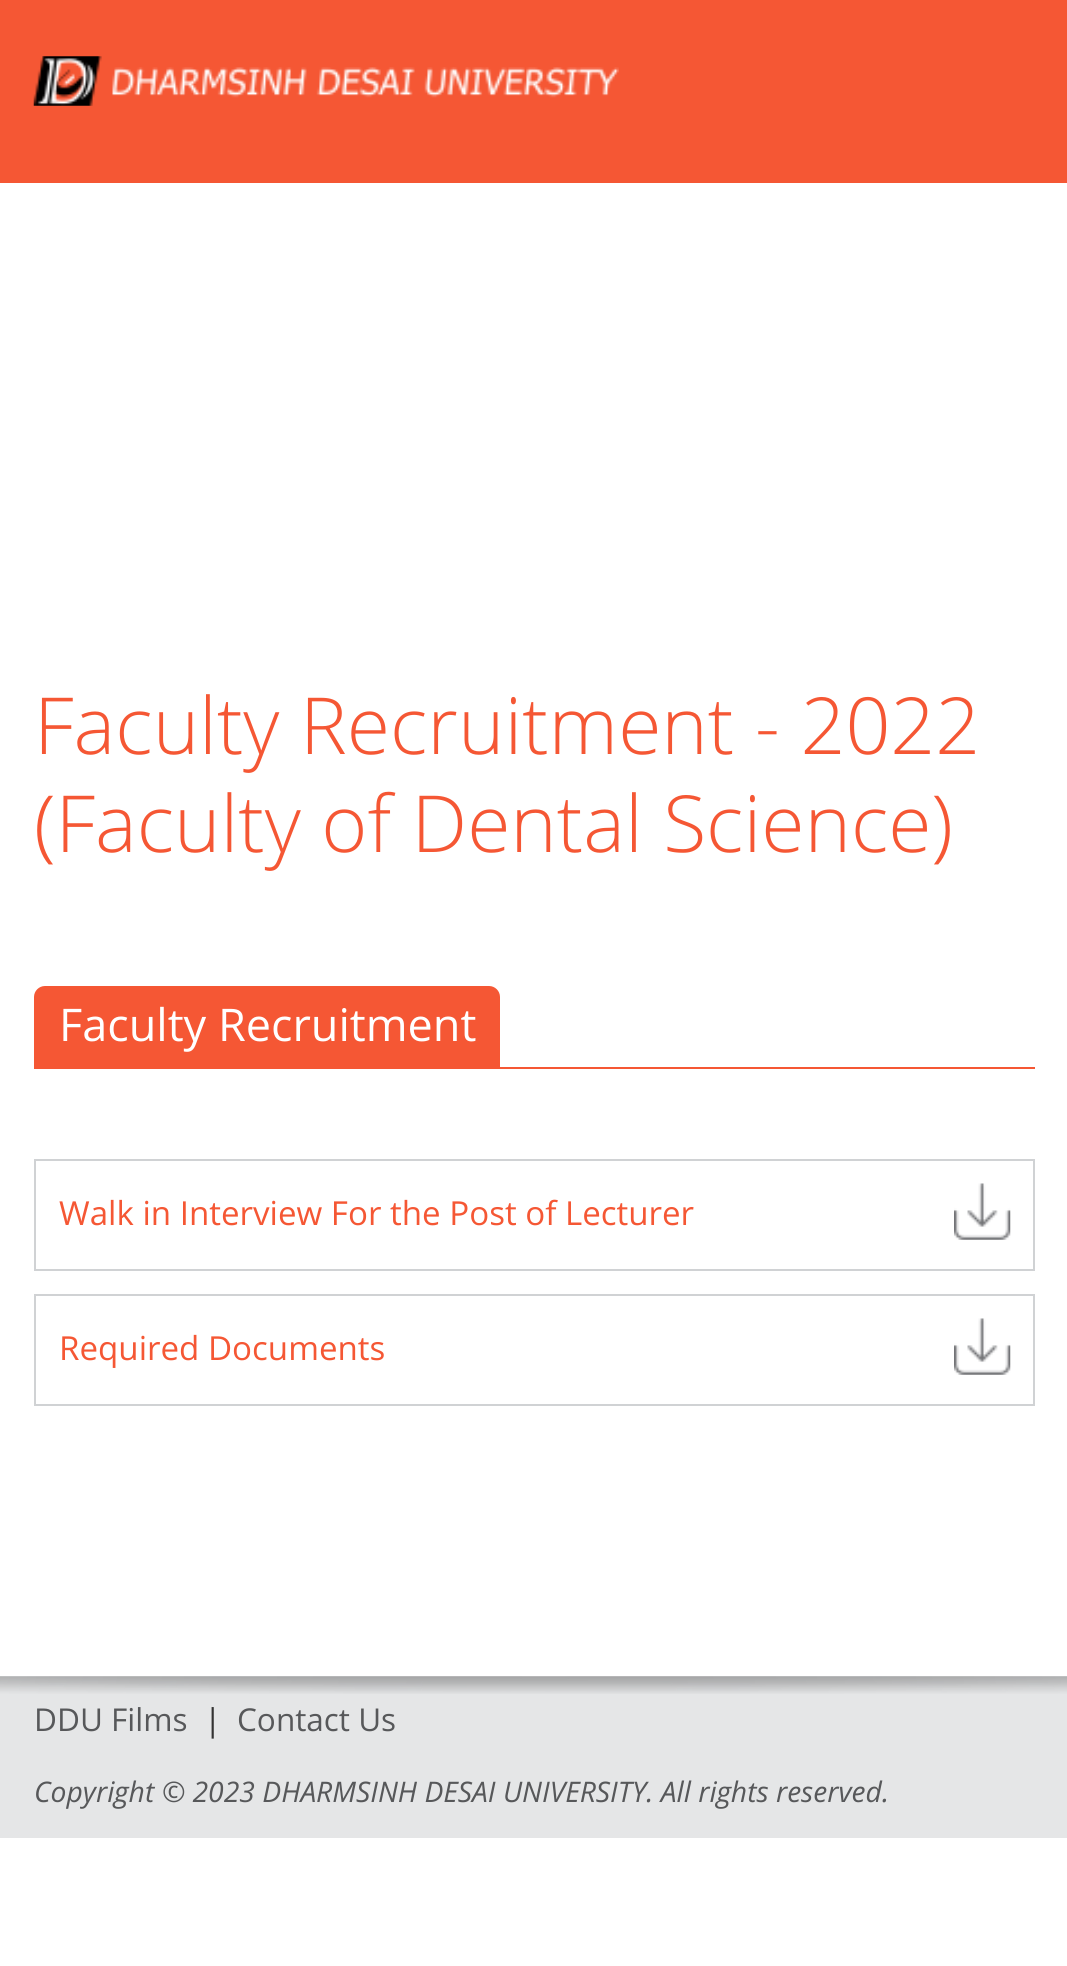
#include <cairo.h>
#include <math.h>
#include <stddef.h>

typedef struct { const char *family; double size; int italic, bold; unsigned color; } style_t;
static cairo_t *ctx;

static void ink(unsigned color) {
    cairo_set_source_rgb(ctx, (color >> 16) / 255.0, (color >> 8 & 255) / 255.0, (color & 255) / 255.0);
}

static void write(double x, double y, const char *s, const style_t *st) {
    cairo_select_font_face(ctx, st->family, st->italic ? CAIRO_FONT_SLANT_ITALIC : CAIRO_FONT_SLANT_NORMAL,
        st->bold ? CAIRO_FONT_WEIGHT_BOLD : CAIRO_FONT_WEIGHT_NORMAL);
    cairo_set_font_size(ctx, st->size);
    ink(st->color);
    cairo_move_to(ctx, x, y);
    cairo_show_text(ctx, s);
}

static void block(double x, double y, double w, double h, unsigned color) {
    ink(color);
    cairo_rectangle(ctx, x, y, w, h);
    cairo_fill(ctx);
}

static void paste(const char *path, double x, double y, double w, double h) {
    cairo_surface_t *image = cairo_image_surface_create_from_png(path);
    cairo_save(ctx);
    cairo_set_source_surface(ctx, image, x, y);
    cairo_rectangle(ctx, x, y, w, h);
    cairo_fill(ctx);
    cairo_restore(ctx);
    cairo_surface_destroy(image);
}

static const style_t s1 = {"Open Sans Light", 78.75, 0, 0, 0xf55734};
static const style_t s2 = {"Open Sans", 45, 0, 0, 0xffffff};
static const style_t s3 = {"Open Sans", 33.1, 0, 0, 0xf55734};
static const style_t s4 = {"Open Sans", 31.5, 0, 0, 0x57585a};
static const style_t s5 = {"Open Sans", 31.5, 0, 0, 0x333333};
static const style_t s6 = {"Open Sans", 28.35, 1, 0, 0x57585a};

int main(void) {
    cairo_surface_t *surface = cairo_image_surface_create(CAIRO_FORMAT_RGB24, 1067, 1966);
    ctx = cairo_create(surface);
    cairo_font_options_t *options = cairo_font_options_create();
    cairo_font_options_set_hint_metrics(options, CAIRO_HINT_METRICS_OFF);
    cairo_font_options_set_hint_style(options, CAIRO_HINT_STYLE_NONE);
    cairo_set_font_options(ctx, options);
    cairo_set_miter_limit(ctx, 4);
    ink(0xffffff);
    cairo_paint(ctx);
    block(0, 0, 1067, 183, 0xf55734);
    paste("pic1.png", 33, 56, 586, 50);
    write(34, 754, "Faculty Recruitment - 2022", &s1);
    write(34, 852, "(Faculty of Dental Science)", &s1);
    block(34, 1067, 1001, 2, 0xf55734);
    cairo_new_path(ctx);
    cairo_move_to(ctx, 45, 987);
    cairo_line_to(ctx, 489, 987);
    cairo_curve_to(ctx, 494.5, 987, 499, 991.5, 499, 997);
    cairo_line_to(ctx, 499, 1066);
    cairo_line_to(ctx, 35, 1066);
    cairo_line_to(ctx, 35, 997);
    cairo_curve_to(ctx, 35, 991.5, 39.5, 987, 45, 987);
    cairo_close_path(ctx);
    cairo_fill_preserve(ctx);
    cairo_stroke(ctx);
    write(59, 1041, "Faculty Recruitment", &s2);
    cairo_rectangle(ctx, 35, 1160, 999, 110);
    ink(0xd0d2d4);
    cairo_stroke(ctx);
    write(59, 1225, "Walk in Interview For the Post of Lecturer", &s3);
    paste("pic2.png", 954, 1183, 57, 57);
    cairo_rectangle(ctx, 35, 1295, 999, 110);
    ink(0xd0d2d4);
    cairo_stroke(ctx);
    write(59, 1360, "Required Documents", &s3);
    paste("pic2.png", 954, 1318, 57, 57);
    block(0, 1676, 1067, 162, 0xe5e6e7);
    paste("pic3.png", 0, 1676, 1067, 18);
    write(34, 1731, "DDU Films", &s4);
    write(204, 1731, "|", &s5);
    write(237, 1731, "Contact Us", &s4);
    write(34, 1802, "Copyright © 2023 DHARMSINH DESAI UNIVERSITY. All rights reserved.", &s6);
    cairo_surface_write_to_png(surface, "screenshot.png");
    cairo_font_options_destroy(options);
    cairo_destroy(ctx);
    cairo_surface_destroy(surface);
    return 0;
}
